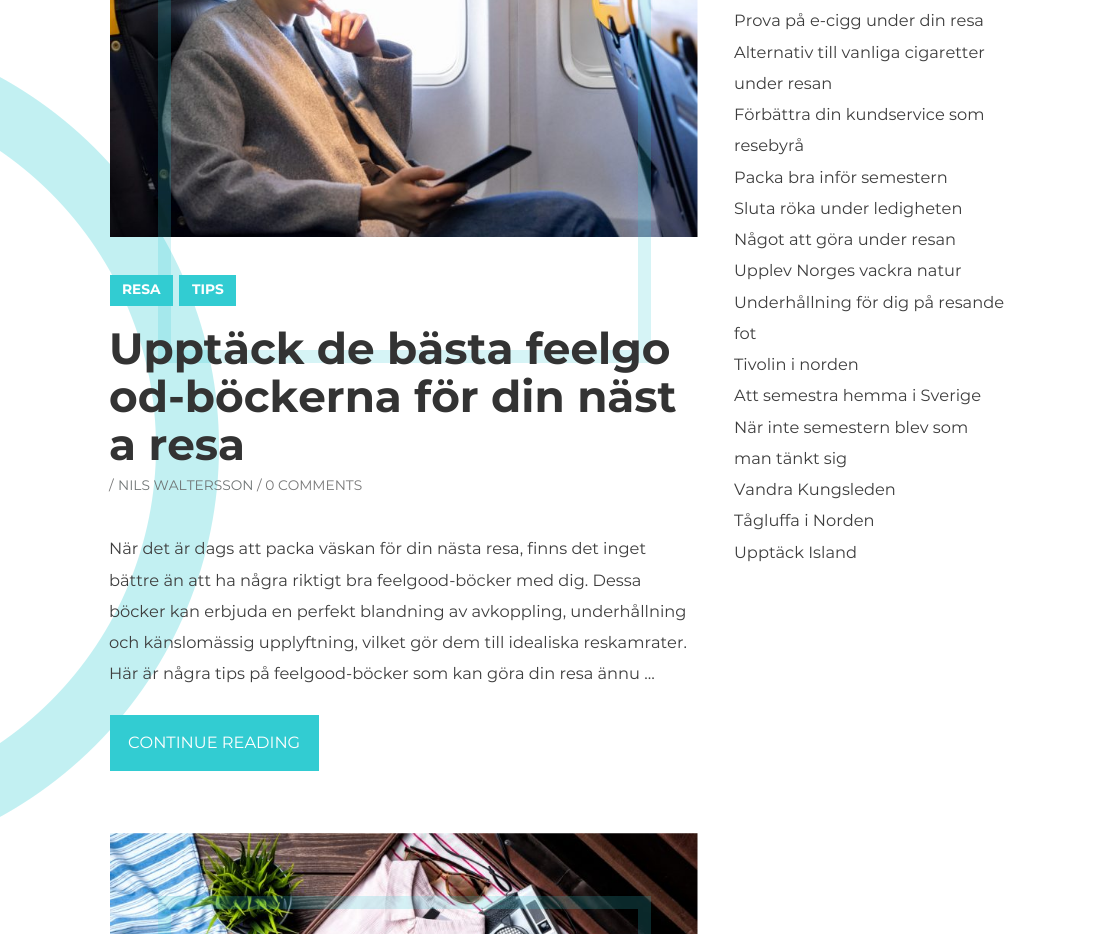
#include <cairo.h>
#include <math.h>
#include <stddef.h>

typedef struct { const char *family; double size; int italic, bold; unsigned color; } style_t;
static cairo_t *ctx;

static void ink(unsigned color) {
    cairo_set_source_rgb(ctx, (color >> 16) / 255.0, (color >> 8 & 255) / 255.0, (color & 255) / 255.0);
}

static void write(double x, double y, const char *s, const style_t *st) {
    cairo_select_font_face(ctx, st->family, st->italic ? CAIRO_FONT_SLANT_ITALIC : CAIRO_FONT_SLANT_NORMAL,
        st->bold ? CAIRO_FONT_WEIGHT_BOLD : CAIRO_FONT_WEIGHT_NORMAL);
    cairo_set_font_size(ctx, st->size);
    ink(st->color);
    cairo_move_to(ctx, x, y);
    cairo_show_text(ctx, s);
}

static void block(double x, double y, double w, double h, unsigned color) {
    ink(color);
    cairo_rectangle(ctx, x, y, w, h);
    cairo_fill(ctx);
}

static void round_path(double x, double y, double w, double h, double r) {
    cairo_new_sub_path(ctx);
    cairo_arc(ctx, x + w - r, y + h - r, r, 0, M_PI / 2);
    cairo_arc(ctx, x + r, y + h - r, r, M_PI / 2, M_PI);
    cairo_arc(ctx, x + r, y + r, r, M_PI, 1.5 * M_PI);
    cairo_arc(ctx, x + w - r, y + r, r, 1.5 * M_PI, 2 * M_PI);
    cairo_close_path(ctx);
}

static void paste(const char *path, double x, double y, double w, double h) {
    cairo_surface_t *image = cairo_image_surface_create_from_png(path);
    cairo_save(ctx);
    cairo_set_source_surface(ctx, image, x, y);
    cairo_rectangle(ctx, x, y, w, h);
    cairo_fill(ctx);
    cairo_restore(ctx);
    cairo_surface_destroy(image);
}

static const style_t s1 = {"Montserrat", 13.75, 0, 1, 0xffffff};
static const style_t s2 = {"Montserrat", 43.75, 0, 1, 0x333333};
static const style_t s3 = {"Montserrat", 13.75, 0, 0, 0x777777};
static const style_t s4 = {"Montserrat", 13.75, 0, 0, 0x6f7575};
static const style_t s5 = {"Montserrat", 16.25, 0, 0, 0x3d3d3d};
static const style_t s6 = {"Montserrat", 16.25, 0, 0, 0xffffff};

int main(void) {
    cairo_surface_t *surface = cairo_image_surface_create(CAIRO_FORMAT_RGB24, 1118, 934);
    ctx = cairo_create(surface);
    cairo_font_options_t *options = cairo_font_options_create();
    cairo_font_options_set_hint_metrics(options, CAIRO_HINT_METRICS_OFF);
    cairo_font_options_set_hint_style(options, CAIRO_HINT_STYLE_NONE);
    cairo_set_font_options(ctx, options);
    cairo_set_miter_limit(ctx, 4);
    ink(0xffffff);
    cairo_paint(ctx);
    round_path(-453.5, 56.5, 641, 781, 390.5);
    ink(0xc2f0f2);
    cairo_set_line_width(ctx, 63);
    cairo_stroke(ctx);
    paste("pic1.png", 110, 0, 588, 237);
    cairo_rectangle(ctx, 164.5, -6.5, 480, 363);
    cairo_set_source_rgba(ctx, 0.196, 0.8, 0.824, 0.2);
    cairo_set_line_width(ctx, 13);
    cairo_stroke(ctx);
    block(110, 275, 63, 31, 0x32ccd2);
    write(122, 294, "RESA", &s1);
    block(179, 275, 57, 31, 0x32ccd2);
    write(192, 294, "TIPS", &s1);
    write(109, 364, "Upptäck de bästa feelgo", &s2);
    write(109, 412, "od-böckerna för din näst", &s2);
    write(109, 460, "a resa", &s2);
    write(109, 490, "/", &s3);
    write(118, 490, "NILS WALTERSSON", &s4);
    write(257, 490, "/ 0 COMMENTS", &s3);
    write(109, 554, "När det är dags att packa väskan för din nästa resa, finns det inget", &s5);
    write(109, 586, "bättre än att ha några riktigt bra feelgood-böcker med dig. Dessa", &s5);
    write(109, 617, "böcker kan erbjuda en perfekt blandning av avkoppling, underhållning", &s5);
    write(109, 648, "och känslomässig upplyftning, vilket gör dem till idealiska reskamrater.", &s5);
    write(109, 679, "Här är några tips på feelgood-böcker som kan göra din resa ännu …", &s5);
    block(110, 715, 209, 56, 0x32ccd2);
    write(128, 748, "CONTINUE READING", &s6);
    paste("pic2.png", 110, 833, 588, 101);
    cairo_rectangle(ctx, 164.5, 902.5, 480, 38);
    cairo_set_source_rgba(ctx, 0.196, 0.8, 0.824, 0.2);
    cairo_stroke(ctx);
    write(734, 26, "Prova på e-cigg under din resa", &s5);
    write(734, 58, "Alternativ till vanliga cigaretter", &s5);
    write(734, 89, "under resan", &s5);
    write(734, 120, "Förbättra din kundservice som", &s5);
    write(734, 151, "resebyrå", &s5);
    write(734, 183, "Packa bra inför semestern", &s5);
    write(734, 214, "Sluta röka under ledigheten", &s5);
    write(734, 245, "Något att göra under resan", &s5);
    write(734, 276, "Upplev Norges vackra natur", &s5);
    write(734, 308, "Underhållning för dig på resande", &s5);
    write(734, 339, "fot", &s5);
    write(734, 370, "Tivolin i norden", &s5);
    write(734, 401, "Att semestra hemma i Sverige", &s5);
    write(734, 433, "När inte semestern blev som", &s5);
    write(734, 464, "man tänkt sig", &s5);
    write(734, 495, "Vandra Kungsleden", &s5);
    write(734, 526, "Tågluffa i Norden", &s5);
    write(734, 558, "Upptäck Island", &s5);
    cairo_surface_write_to_png(surface, "screenshot.png");
    cairo_font_options_destroy(options);
    cairo_destroy(ctx);
    cairo_surface_destroy(surface);
    return 0;
}
